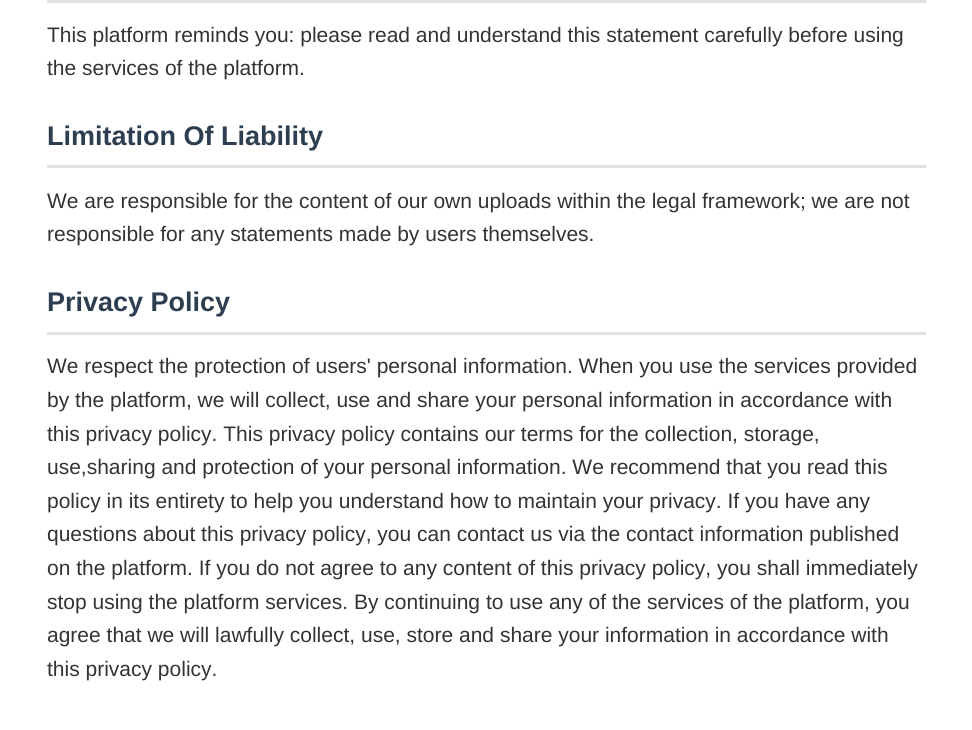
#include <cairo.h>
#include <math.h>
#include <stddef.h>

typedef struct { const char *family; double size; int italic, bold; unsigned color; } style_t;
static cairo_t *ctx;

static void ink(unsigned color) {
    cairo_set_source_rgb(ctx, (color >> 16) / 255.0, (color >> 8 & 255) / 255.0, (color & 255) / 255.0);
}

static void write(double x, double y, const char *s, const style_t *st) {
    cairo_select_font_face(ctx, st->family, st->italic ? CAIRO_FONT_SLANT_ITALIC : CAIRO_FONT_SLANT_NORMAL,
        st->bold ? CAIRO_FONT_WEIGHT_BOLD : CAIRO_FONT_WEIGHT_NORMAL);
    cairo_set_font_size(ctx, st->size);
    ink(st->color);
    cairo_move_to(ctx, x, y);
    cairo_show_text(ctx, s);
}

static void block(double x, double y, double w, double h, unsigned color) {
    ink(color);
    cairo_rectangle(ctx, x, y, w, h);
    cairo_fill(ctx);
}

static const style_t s1 = {"Liberation Sans", 21, 0, 0, 0x333333};
static const style_t s2 = {"Liberation Sans", 27, 0, 1, 0x2c3e50};

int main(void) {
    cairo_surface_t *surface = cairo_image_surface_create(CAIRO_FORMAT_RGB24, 972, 730);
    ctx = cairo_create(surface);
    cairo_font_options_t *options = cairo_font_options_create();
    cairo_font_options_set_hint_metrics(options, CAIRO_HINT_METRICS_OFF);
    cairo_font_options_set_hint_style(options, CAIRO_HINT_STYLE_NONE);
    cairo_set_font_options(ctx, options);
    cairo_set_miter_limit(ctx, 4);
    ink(0xffffff);
    cairo_paint(ctx);
    block(47, 0, 879, 3, 0xe0e0e0);
    write(47, 42, "This platform reminds you: please read and understand this statement carefully before using", &s1);
    write(47, 75, "the services of the platform.", &s1);
    block(47, 165, 879, 3, 0xe0e0e0);
    write(47, 145, "Limitation Of Liability", &s2);
    write(47, 208, "We are responsible for the content of our own uploads within the legal framework; we are not", &s1);
    write(47, 241, "responsible for any statements made by users themselves.", &s1);
    block(47, 332, 879, 3, 0xe0e0e0);
    write(47, 311, "Privacy Policy", &s2);
    write(47, 373, "We respect the protection of users' personal information. When you use the services provided", &s1);
    write(47, 407, "by the platform, we will collect, use and share your personal information in accordance with", &s1);
    write(47, 441, "this privacy policy. This privacy policy contains our terms for the collection, storage,", &s1);
    write(47, 474, "use,sharing and protection of your personal information. We recommend that you read this", &s1);
    write(47, 508, "policy in its entirety to help you understand how to maintain your privacy. If you have any", &s1);
    write(47, 541, "questions about this privacy policy, you can contact us via the contact information published", &s1);
    write(47, 575, "on the platform. If you do not agree to any content of this privacy policy, you shall immediately", &s1);
    write(47, 609, "stop using the platform services. By continuing to use any of the services of the platform, you", &s1);
    write(47, 642, "agree that we will lawfully collect, use, store and share your information in accordance with", &s1);
    write(47, 676, "this privacy policy.", &s1);
    cairo_surface_write_to_png(surface, "screenshot.png");
    cairo_font_options_destroy(options);
    cairo_destroy(ctx);
    cairo_surface_destroy(surface);
    return 0;
}
